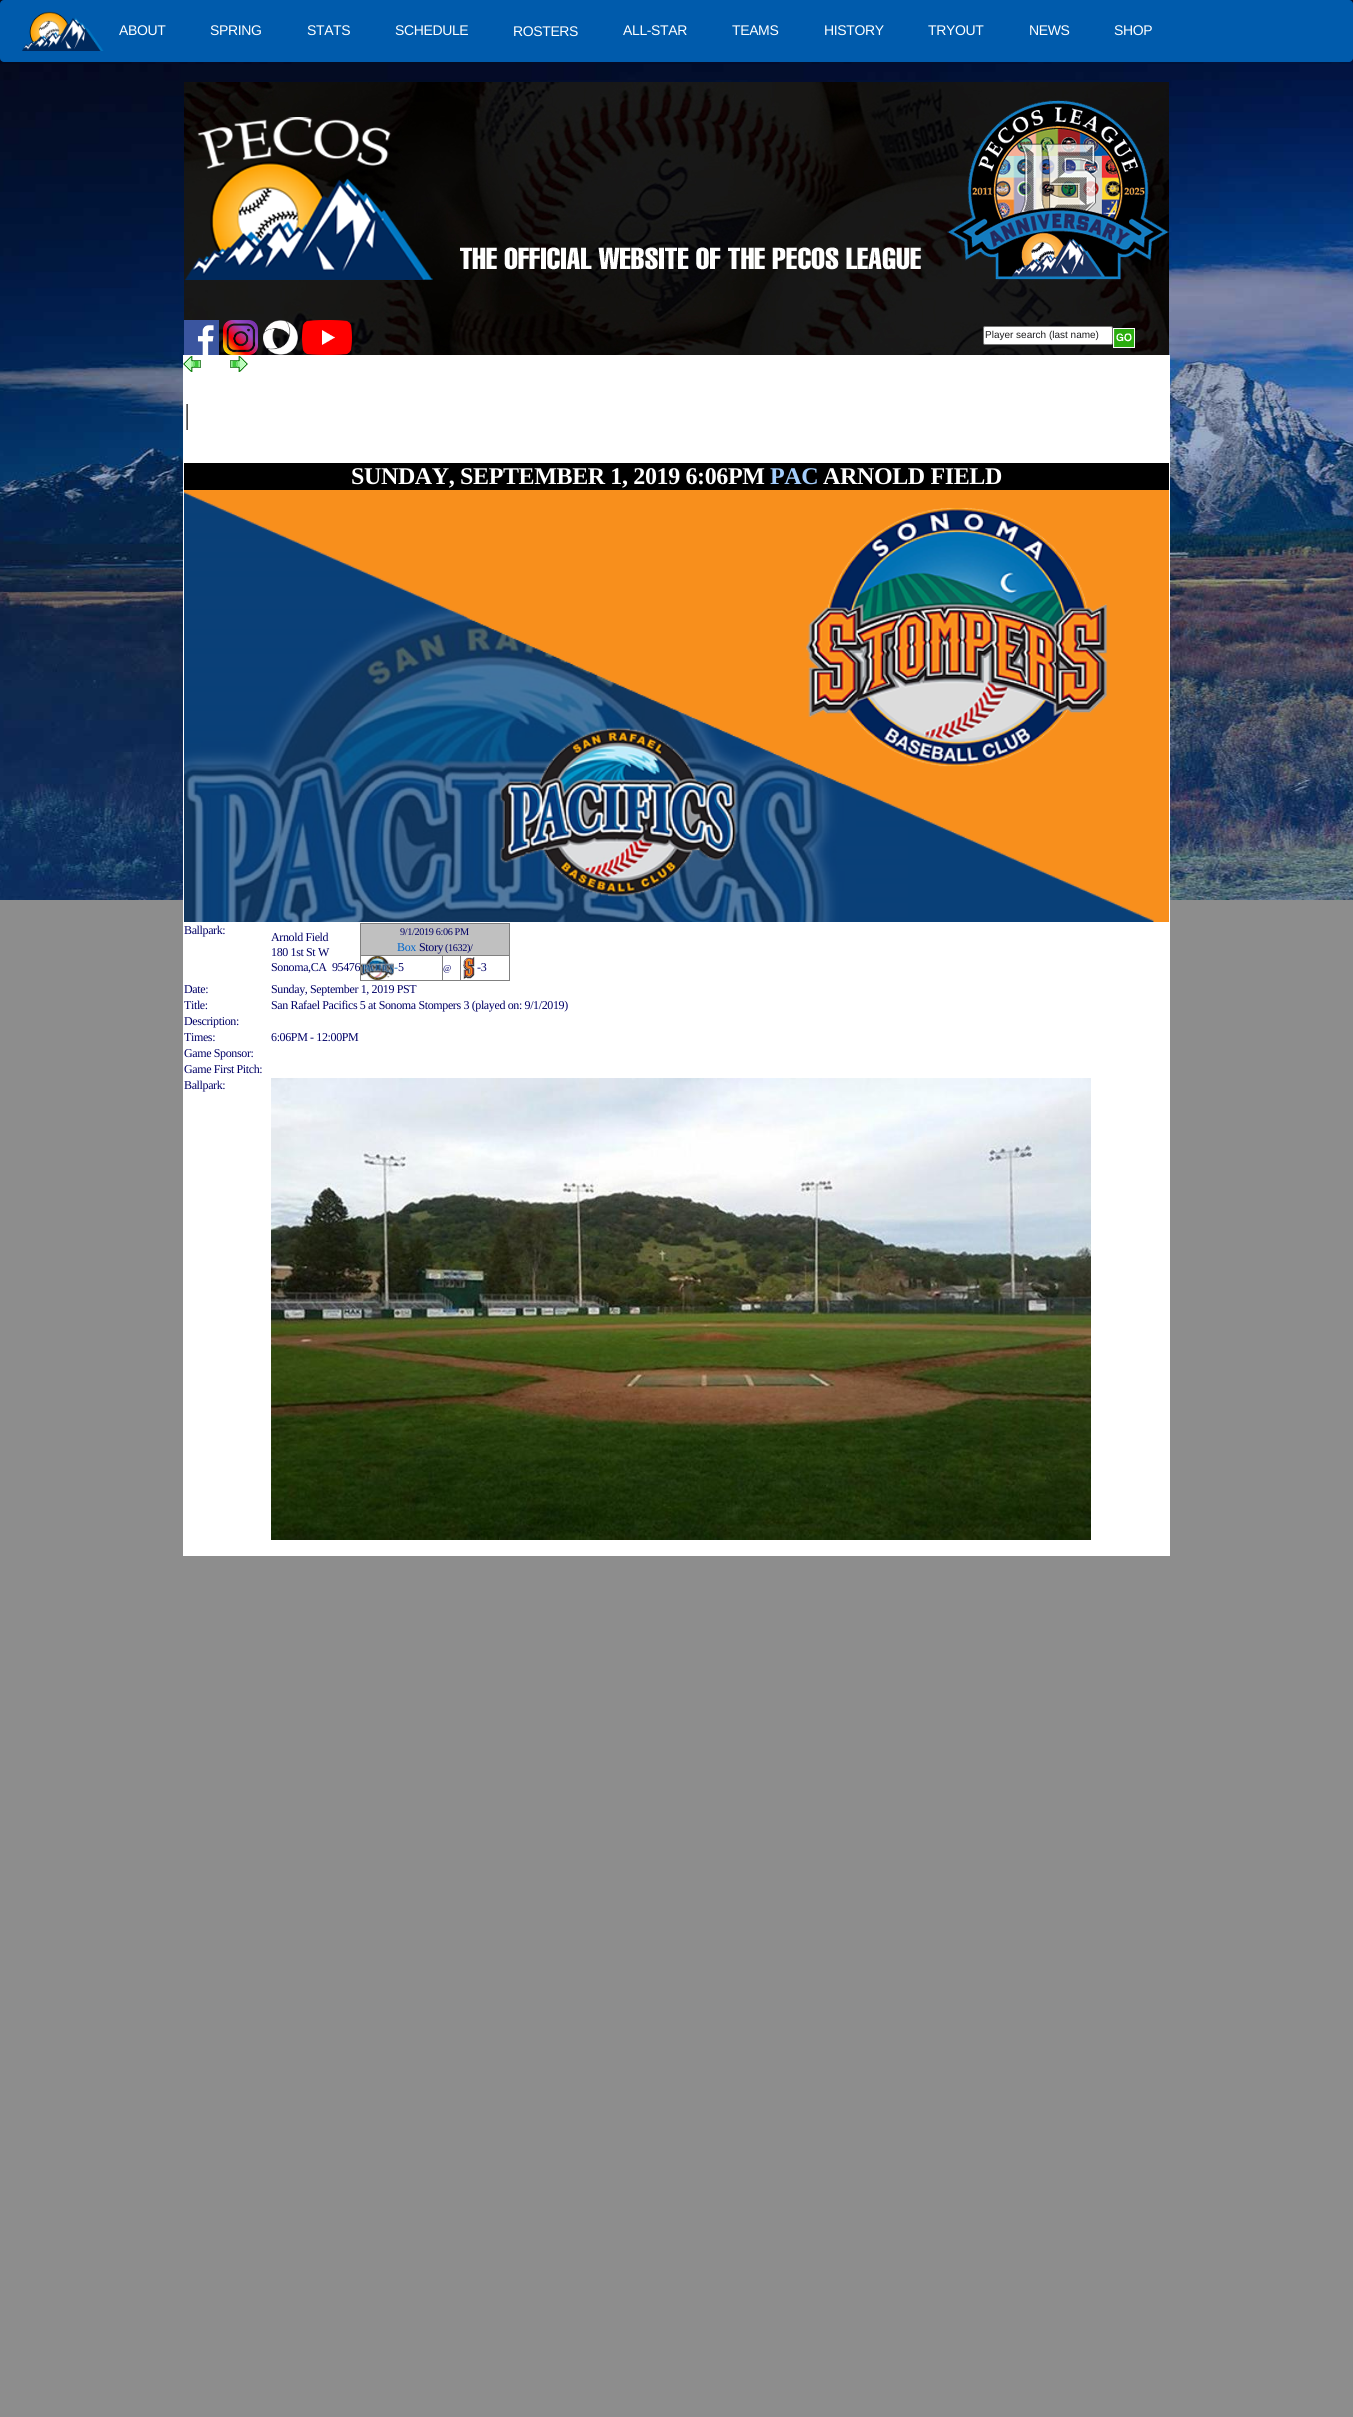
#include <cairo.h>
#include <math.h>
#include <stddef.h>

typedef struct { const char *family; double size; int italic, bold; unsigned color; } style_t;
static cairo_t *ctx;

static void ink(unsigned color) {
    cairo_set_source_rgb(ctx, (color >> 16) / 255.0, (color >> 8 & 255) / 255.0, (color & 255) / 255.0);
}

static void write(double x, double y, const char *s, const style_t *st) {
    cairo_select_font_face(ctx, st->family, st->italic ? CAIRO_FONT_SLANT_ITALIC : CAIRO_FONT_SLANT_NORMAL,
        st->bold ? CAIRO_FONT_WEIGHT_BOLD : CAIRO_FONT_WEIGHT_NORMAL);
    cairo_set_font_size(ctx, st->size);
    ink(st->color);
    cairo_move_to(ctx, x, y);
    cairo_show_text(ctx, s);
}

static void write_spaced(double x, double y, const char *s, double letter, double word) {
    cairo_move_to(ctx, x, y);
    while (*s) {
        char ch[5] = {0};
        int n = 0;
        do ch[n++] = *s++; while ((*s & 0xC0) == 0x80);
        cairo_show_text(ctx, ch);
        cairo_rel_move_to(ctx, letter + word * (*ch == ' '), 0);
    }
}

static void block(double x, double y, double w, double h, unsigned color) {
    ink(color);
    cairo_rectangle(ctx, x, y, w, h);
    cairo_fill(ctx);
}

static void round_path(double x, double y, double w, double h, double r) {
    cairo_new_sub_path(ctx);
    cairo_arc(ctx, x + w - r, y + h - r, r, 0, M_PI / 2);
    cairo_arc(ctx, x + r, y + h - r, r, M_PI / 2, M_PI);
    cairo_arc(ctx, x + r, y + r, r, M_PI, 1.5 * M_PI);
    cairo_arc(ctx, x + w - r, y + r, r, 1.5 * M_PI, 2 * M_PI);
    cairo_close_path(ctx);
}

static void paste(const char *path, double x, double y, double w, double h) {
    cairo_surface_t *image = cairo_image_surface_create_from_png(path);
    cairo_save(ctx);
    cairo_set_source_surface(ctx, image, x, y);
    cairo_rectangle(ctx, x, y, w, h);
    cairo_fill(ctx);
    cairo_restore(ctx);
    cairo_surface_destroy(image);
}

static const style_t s1 = {"Liberation Sans", 10, 0, 0, 0x1d1d1f};

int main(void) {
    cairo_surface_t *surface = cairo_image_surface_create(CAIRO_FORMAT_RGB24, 1353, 2417);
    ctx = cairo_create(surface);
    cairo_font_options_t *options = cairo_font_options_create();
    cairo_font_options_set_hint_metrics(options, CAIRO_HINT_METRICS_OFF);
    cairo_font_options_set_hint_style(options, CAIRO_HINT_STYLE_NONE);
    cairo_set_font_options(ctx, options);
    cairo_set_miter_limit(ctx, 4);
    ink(0x8d8d8d);
    cairo_paint(ctx);
    paste("pic1.png", 0, 0, 1353, 900);
    ink(0x005bac);
    round_path(0, 0, 1353, 62, 4);
    cairo_fill(ctx);
    paste("pic2.png", 22, 11, 82, 40);
    cairo_select_font_face(ctx, "Liberation Sans", CAIRO_FONT_SLANT_NORMAL, CAIRO_FONT_WEIGHT_NORMAL);
    cairo_set_font_size(ctx, 14);
    ink(0xffffff);
    write_spaced(119, 35, "ABOUT", -0.37, 0);
    write_spaced(210, 35, "SPRING", -0.37, 0);
    write_spaced(307, 35, "STATS", -0.37, 0);
    write_spaced(395, 35, "SCHEDULE", -0.37, 0);
    write_spaced(513, 36, "ROSTERS", -0.37, 0);
    write_spaced(623, 35, "ALL-STAR", -0.37, 0);
    write_spaced(732, 35, "TEAMS", -0.37, 0);
    write_spaced(824, 35, "HISTORY", -0.37, 0);
    write_spaced(928, 35, "TRYOUT", -0.37, 0);
    write_spaced(1029, 35, "NEWS", -0.37, 0);
    write_spaced(1114, 35, "SHOP", -0.37, 0);
    paste("pic3.png", 184, 82, 985, 273);
    paste("pic4.png", 184, 100, 985, 180);
    paste("pic5.png", 184, 320, 35, 35);
    paste("pic6.png", 223, 320, 35, 35);
    paste("pic7.png", 263, 320, 35, 35);
    paste("pic8.png", 302, 320, 50, 35);
    round_path(983.5, 326.5, 129, 18, 1.5);
    cairo_fill_preserve(ctx);
    ink(0x767676);
    cairo_set_line_width(ctx, 1);
    cairo_stroke(ctx);
    write(985, 338, "Player search (last name)", &s1);
    paste("pic9.png", 1113, 328, 22, 20);
    block(183, 355, 987, 1201, 0xffffff);
    paste("pic10.png", 183, 356, 18, 16);
    paste("pic11.png", 230, 356, 18, 16);
    block(186, 404, 1, 26, 0x848485);
    block(187, 404, 1, 26, 0x525252);
    block(184, 463, 985, 27, 0x000000);
    cairo_select_font_face(ctx, "Liberation Serif", CAIRO_FONT_SLANT_NORMAL, CAIRO_FONT_WEIGHT_BOLD);
    cairo_set_font_size(ctx, 24);
    ink(0xffffff);
    write_spaced(351, 484, "SUNDAY, SEPTEMBER 1, 2019 6:06PM", -0.37, 0);
    ink(0xa4cefd);
    write_spaced(770, 484, "PAC", -0.37, 0);
    ink(0xffffff);
    write_spaced(823, 484, "ARNOLD FIELD", -0.37, 0);
    paste("pic12.png", 184, 490, 985, 432);
    cairo_select_font_face(ctx, "Liberation Serif", CAIRO_FONT_SLANT_NORMAL, CAIRO_FONT_WEIGHT_NORMAL);
    cairo_set_font_size(ctx, 12);
    ink(0x000066);
    write_spaced(184, 934, "Ballpark:", -0.37, 0);
    write_spaced(271, 941, "Arnold Field", -0.37, 0);
    write_spaced(271, 956, "180 1st St W", -0.37, 0);
    write_spaced(271, 971, "Sonoma,CA  95476", -0.37, 0);
    block(360, 923, 150, 1, 0x808080);
    block(509, 923, 1, 58, 0x808080);
    block(360, 980, 150, 1, 0x808080);
    block(360, 923, 1, 58, 0x808080);
    block(361, 924, 148, 31, 0xc0c0c0);
    cairo_set_font_size(ctx, 10.25);
    ink(0x000066);
    write_spaced(400, 935, "9/1/2019 6:06 PM", -0.37, 0);
    cairo_set_font_size(ctx, 12);
    ink(0x0066cc);
    write_spaced(397, 951, "Box", -0.37, 0);
    ink(0x000066);
    write_spaced(419, 951, "Story", -0.37, 0);
    cairo_set_font_size(ctx, 10.25);
    write_spaced(445, 951, "(1632)/", -0.37, 0);
    block(460, 955, 50, 1, 0x808080);
    block(460, 955, 1, 26, 0x808080);
    block(442, 955, 19, 1, 0x808080);
    block(442, 955, 1, 26, 0x808080);
    block(360, 955, 83, 1, 0x808080);
    paste("pic13.png", 361, 956, 33, 24);
    cairo_set_font_size(ctx, 12);
    ink(0x0066cc);
    write_spaced(394, 971, "-", -0.37, 0);
    ink(0x000066);
    write_spaced(398, 971, "5", -0.37, 0);
    cairo_set_font_size(ctx, 9);
    write_spaced(443, 971, "@", -0.37, 0);
    paste("pic14.png", 463, 957, 12, 23);
    cairo_set_font_size(ctx, 12);
    write_spaced(477, 971, "-3", -0.37, 0);
    write_spaced(184, 993, "Date:", -0.37, 0);
    write_spaced(271, 993, "Sunday, September 1, 2019 PST", -0.37, 0);
    write_spaced(184, 1009, "Title:", -0.37, 0);
    write_spaced(271, 1009, "San Rafael Pacifics 5 at Sonoma Stompers 3 (played on: 9/1/2019)", -0.37, 0);
    write_spaced(184, 1025, "Description:", -0.37, 0);
    write_spaced(184, 1041, "Times:", -0.37, 0);
    write_spaced(271, 1041, "6:06PM - 12:00PM", -0.37, 0);
    write_spaced(184, 1057, "Game Sponsor:", -0.37, 0);
    write_spaced(184, 1073, "Game First Pitch:", -0.37, 0);
    write_spaced(184, 1089, "Ballpark:", -0.37, 0);
    paste("pic15.png", 271, 1078, 820, 462);
    cairo_surface_write_to_png(surface, "screenshot.png");
    cairo_font_options_destroy(options);
    cairo_destroy(ctx);
    cairo_surface_destroy(surface);
    return 0;
}
